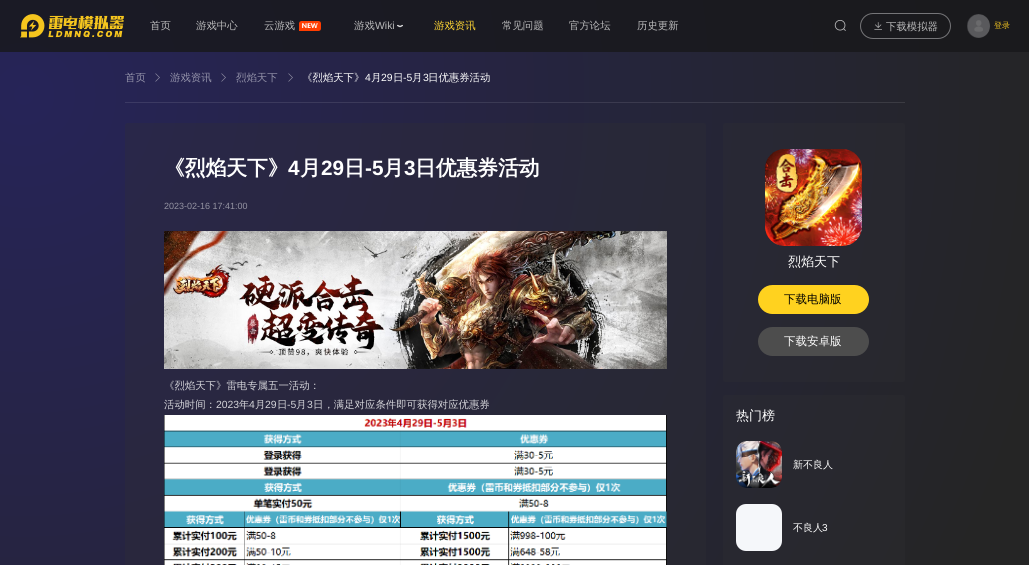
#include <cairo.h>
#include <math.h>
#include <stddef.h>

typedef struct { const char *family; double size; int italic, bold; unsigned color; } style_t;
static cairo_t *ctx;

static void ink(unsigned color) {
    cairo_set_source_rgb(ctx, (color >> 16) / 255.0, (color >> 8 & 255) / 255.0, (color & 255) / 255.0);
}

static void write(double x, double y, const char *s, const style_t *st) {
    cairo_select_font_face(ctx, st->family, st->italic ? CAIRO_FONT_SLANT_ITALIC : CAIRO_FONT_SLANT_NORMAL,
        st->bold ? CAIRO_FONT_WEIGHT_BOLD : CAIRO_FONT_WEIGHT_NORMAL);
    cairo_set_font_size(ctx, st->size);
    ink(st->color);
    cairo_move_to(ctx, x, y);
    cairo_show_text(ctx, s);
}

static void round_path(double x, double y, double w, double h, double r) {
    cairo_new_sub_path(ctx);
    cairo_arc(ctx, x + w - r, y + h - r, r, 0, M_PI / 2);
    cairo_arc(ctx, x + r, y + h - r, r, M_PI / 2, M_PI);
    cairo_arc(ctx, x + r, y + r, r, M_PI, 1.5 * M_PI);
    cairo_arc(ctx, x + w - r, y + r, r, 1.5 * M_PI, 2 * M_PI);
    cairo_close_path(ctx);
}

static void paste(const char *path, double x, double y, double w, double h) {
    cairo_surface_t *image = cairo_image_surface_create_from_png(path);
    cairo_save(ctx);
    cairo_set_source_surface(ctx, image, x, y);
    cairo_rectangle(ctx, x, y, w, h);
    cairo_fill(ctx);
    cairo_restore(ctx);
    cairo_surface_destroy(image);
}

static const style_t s1 = {"WenQuanYi Zen Hei Medium", 10.4, 0, 0, 0xbababb};
static const style_t s2 = {"Liberation Sans", 10.4, 0, 0, 0xbababb};
static const style_t s3 = {"WenQuanYi Zen Hei Medium", 10.4, 0, 0, 0xffd633};
static const style_t s4 = {"WenQuanYi Zen Hei Medium", 8, 0, 0, 0xf4c51f};
static const style_t s5 = {"WenQuanYi Zen Hei Medium", 10.4, 0, 0, 0x9392a9};
static const style_t s6 = {"WenQuanYi Zen Hei Medium", 10.4, 0, 0, 0xffffff};
static const style_t s7 = {"Liberation Sans", 10.4, 0, 0, 0xffffff};
static const style_t s8 = {"WenQuanYi Zen Hei", 20.75, 0, 1, 0xffffff};
static const style_t s9 = {"Liberation Sans", 20.75, 0, 1, 0xffffff};
static const style_t s10 = {"Liberation Sans", 9, 0, 0, 0x9493a2};
static const style_t s11 = {"WenQuanYi Zen Hei Medium", 10.4, 0, 0, 0xd4d4d9};
static const style_t s12 = {"Liberation Sans", 10.4, 0, 0, 0xd4d4d9};
static const style_t s13 = {"WenQuanYi Zen Hei Medium", 13, 0, 0, 0xffffff};
static const style_t s14 = {"WenQuanYi Zen Hei Medium", 11.5, 0, 0, 0x000000};
static const style_t s15 = {"WenQuanYi Zen Hei Medium", 11.5, 0, 0, 0xffffff};
static const style_t s16 = {"WenQuanYi Zen Hei Medium", 10, 0, 0, 0xffffff};
static const style_t s17 = {"Liberation Sans", 10, 0, 0, 0xffffff};

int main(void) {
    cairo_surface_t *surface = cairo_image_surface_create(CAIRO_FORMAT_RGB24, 1029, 565);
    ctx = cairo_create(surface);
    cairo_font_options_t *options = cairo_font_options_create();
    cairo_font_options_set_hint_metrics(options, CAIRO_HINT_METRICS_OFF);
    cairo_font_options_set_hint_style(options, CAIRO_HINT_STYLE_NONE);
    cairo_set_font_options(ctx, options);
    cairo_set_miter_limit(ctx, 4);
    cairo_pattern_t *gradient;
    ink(0xffffff);
    cairo_paint(ctx);
    gradient = cairo_pattern_create_radial(24, 95, 0, 24, 95, 1049);
    cairo_pattern_add_color_stop_rgba(gradient, 0, 0.149, 0.141, 0.345, 1);
    cairo_pattern_add_color_stop_rgba(gradient, 1, 0.145, 0.145, 0.145, 1);
    cairo_set_source(ctx, gradient);
    cairo_pattern_destroy(gradient);
    cairo_rectangle(ctx, 0, 52, 1029, 513);
    cairo_fill(ctx);
    gradient = cairo_pattern_create_radial(24, 95, 0, 24, 95, 1049);
    cairo_pattern_add_color_stop_rgba(gradient, 0, 0.102, 0.102, 0.149, 1);
    cairo_pattern_add_color_stop_rgba(gradient, 1, 0.102, 0.102, 0.11, 1);
    cairo_set_source(ctx, gradient);
    cairo_pattern_destroy(gradient);
    cairo_rectangle(ctx, 0, 0, 1029, 52);
    cairo_fill(ctx);
    gradient = cairo_pattern_create_radial(24, 95, 0, 24, 95, 1049);
    cairo_pattern_add_color_stop_rgba(gradient, 0, 0.235, 0.227, 0.412, 1);
    cairo_pattern_add_color_stop_rgba(gradient, 1, 0.231, 0.231, 0.231, 1);
    cairo_set_source(ctx, gradient);
    cairo_pattern_destroy(gradient);
    cairo_rectangle(ctx, 125, 102, 780, 1);
    cairo_fill(ctx);
    paste("pic1.png", 20, 14, 104, 24);
    write(150, 29, "首页", &s1);
    write(196, 29, "游戏中心", &s1);
    write(264, 29, "云游戏", &s1);
    paste("pic2.png", 299, 21, 22, 10);
    write(354, 29, "游戏", &s1);
    write(375, 29, "Wiki", &s2);
    paste("pic3.png", 397, 24, 6, 4);
    write(434, 29, "游戏资讯", &s3);
    write(502, 29, "常见问题", &s1);
    write(569, 29, "官方论坛", &s1);
    write(637, 29, "历史更新", &s1);
    paste("pic4.png", 834, 20, 12, 11);
    round_path(860.5, 13.5, 90, 25, 12.5);
    ink(0x757578);
    cairo_set_line_width(ctx, 1);
    cairo_stroke(ctx);
    paste("pic5.png", 874, 22, 8, 8);
    write(886, 30, "下载模拟器", &s1);
    ink(0x3c3c3f);
    round_path(967, 14, 23, 24, 11.5);
    cairo_fill(ctx);
    paste("pic6.png", 967, 14, 23, 24);
    write(994, 28, "登录", &s4);
    write(125, 81, "首页", &s5);
    cairo_new_path(ctx);
    cairo_move_to(ctx, 155.5, 81.5);
    cairo_line_to(ctx, 159.5, 77.5);
    cairo_line_to(ctx, 155.5, 73.5);
    ink(0x9392a8);
    cairo_set_line_width(ctx, 0.6);
    cairo_stroke(ctx);
    write(170, 81, "游戏资讯", &s5);
    cairo_new_path(ctx);
    cairo_move_to(ctx, 221.5, 81.5);
    cairo_line_to(ctx, 225.5, 77.5);
    cairo_line_to(ctx, 221.5, 73.5);
    ink(0x9392a7);
    cairo_stroke(ctx);
    write(236, 81, "烈焰天下", &s5);
    cairo_new_path(ctx);
    cairo_move_to(ctx, 288.5, 81.5);
    cairo_line_to(ctx, 292.5, 77.5);
    cairo_line_to(ctx, 288.5, 73.5);
    ink(0x9392a5);
    cairo_stroke(ctx);
    write(302, 81, "《烈焰天下》", &s6);
    write(365, 81, "4", &s7);
    write(371, 81, "月", &s6);
    write(381, 81, "29", &s7);
    write(393, 81, "日", &s6);
    write(403, 81, "-5", &s7);
    write(412, 81, "月", &s6);
    write(423, 81, "3", &s7);
    write(428, 81, "日优惠券活动", &s6);
    cairo_set_source_rgba(ctx, 0.184, 0.184, 0.2, 0.3);
    round_path(125, 123, 581, 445, 2.5);
    cairo_fill(ctx);
    write(164, 175, "《烈焰天下》", &s8);
    write(288, 175, "4", &s9);
    write(300, 175, "月", &s8);
    write(321, 175, "29", &s9);
    write(344, 175, "日", &s8);
    write(365, 175, "-5", &s9);
    write(383, 175, "月", &s8);
    write(404, 175, "3", &s9);
    write(415, 175, "日优惠券活动", &s8);
    write(164, 209, "2023-02-16 17:41:00", &s10);
    paste("pic7.png", 164, 231, 503, 138);
    write(164, 389, "《烈焰天下》雷电专属五一活动：", &s11);
    write(164, 408, "活动时间：", &s11);
    write(216, 408, "2023", &s12);
    write(239, 408, "年", &s11);
    write(249, 408, "4", &s12);
    write(255, 408, "月", &s11);
    write(265, 408, "29", &s12);
    write(277, 408, "日", &s11);
    write(287, 408, "-5", &s12);
    write(296, 408, "月", &s11);
    write(307, 408, "3", &s12);
    write(313, 408, "日，满足对应条件即可获得对应优惠券", &s11);
    paste("pic8.png", 164, 415, 503, 150);
    cairo_set_source_rgba(ctx, 0.184, 0.184, 0.2, 0.3);
    round_path(723, 123, 182, 259, 2.5);
    cairo_fill(ctx);
    paste("pic9.png", 765, 149, 97, 97);
    write(788, 266, "烈焰天下", &s13);
    ink(0xffd21f);
    round_path(758, 285, 111, 29, 14.5);
    cairo_fill(ctx);
    write(784, 303, "下载电脑版", &s14);
    ink(0x4d4d4d);
    round_path(758, 327, 111, 29, 14.5);
    cairo_fill(ctx);
    write(784, 345, "下载安卓版", &s15);
    cairo_set_source_rgba(ctx, 0.184, 0.184, 0.2, 0.3);
    round_path(723, 395, 182, 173, 2.5);
    cairo_fill(ctx);
    write(736, 420, "热门榜", &s13);
    paste("pic10.png", 736, 441, 46, 47);
    write(793, 468, "新不良人", &s16);
    ink(0xf5f7fa);
    round_path(736, 504, 46, 47, 10);
    cairo_fill(ctx);
    write(793, 531, "不良人", &s16);
    write(822, 531, "3", &s17);
    cairo_surface_write_to_png(surface, "screenshot.png");
    cairo_font_options_destroy(options);
    cairo_destroy(ctx);
    cairo_surface_destroy(surface);
    return 0;
}
